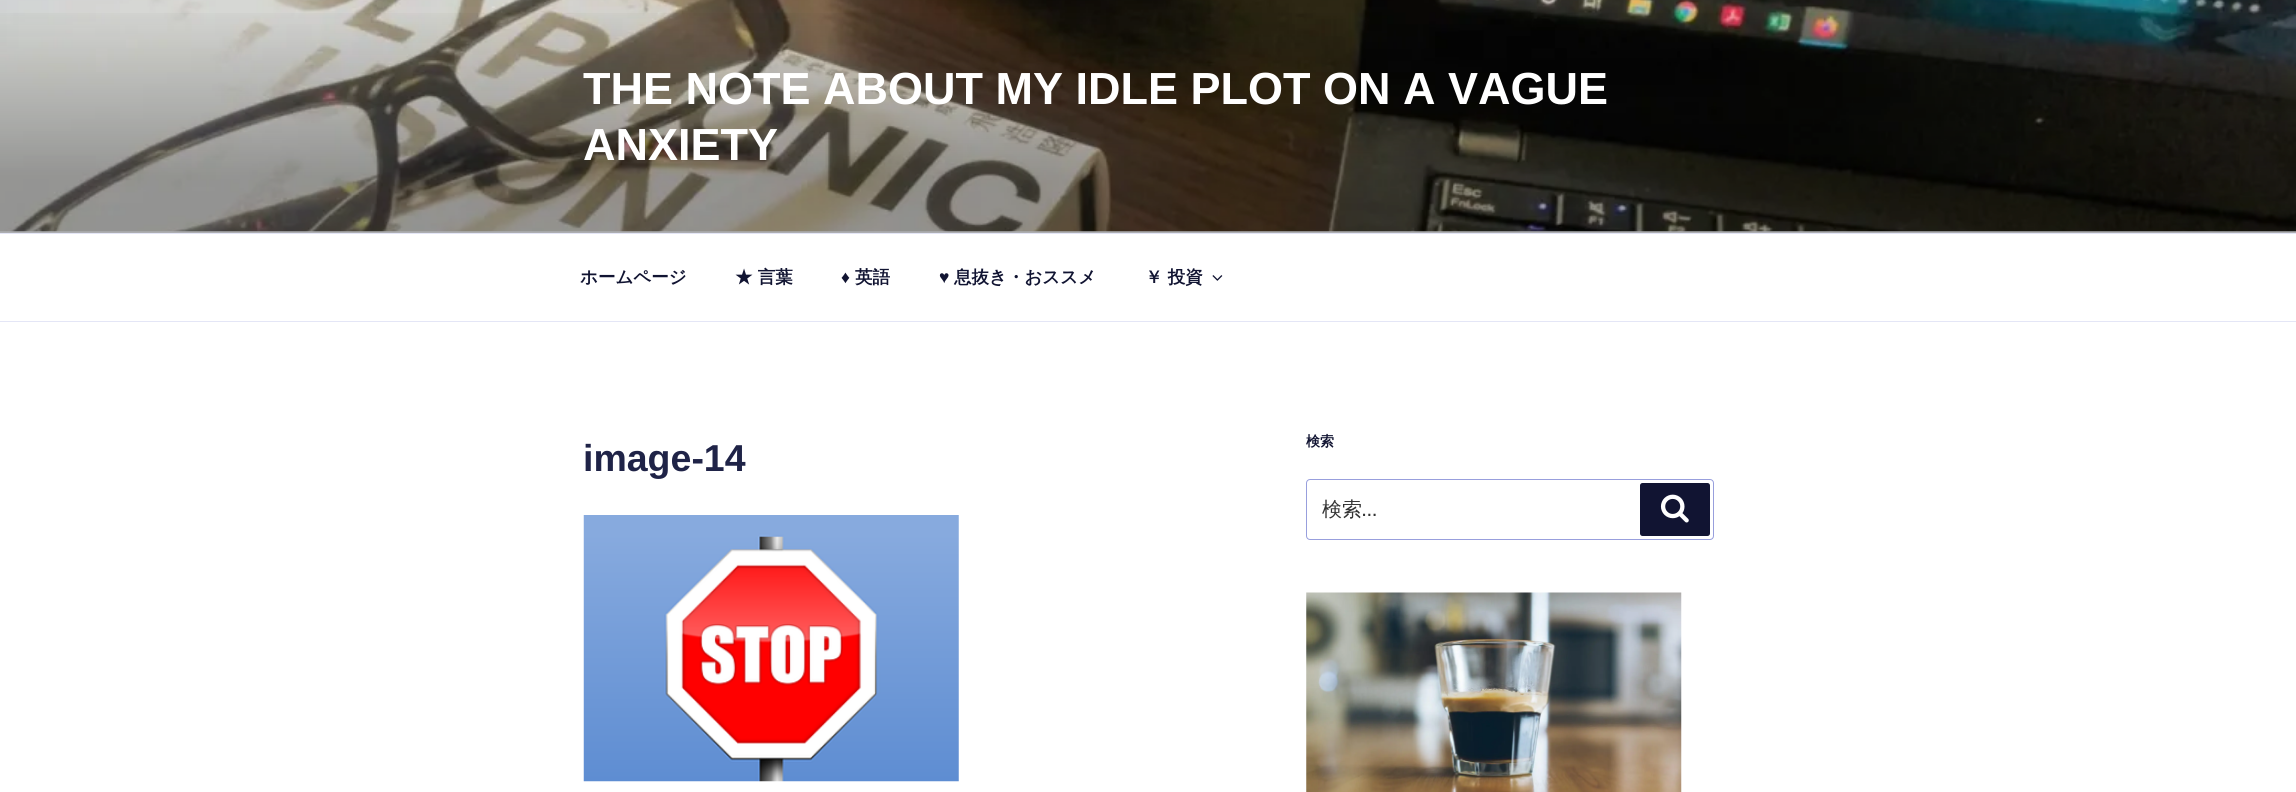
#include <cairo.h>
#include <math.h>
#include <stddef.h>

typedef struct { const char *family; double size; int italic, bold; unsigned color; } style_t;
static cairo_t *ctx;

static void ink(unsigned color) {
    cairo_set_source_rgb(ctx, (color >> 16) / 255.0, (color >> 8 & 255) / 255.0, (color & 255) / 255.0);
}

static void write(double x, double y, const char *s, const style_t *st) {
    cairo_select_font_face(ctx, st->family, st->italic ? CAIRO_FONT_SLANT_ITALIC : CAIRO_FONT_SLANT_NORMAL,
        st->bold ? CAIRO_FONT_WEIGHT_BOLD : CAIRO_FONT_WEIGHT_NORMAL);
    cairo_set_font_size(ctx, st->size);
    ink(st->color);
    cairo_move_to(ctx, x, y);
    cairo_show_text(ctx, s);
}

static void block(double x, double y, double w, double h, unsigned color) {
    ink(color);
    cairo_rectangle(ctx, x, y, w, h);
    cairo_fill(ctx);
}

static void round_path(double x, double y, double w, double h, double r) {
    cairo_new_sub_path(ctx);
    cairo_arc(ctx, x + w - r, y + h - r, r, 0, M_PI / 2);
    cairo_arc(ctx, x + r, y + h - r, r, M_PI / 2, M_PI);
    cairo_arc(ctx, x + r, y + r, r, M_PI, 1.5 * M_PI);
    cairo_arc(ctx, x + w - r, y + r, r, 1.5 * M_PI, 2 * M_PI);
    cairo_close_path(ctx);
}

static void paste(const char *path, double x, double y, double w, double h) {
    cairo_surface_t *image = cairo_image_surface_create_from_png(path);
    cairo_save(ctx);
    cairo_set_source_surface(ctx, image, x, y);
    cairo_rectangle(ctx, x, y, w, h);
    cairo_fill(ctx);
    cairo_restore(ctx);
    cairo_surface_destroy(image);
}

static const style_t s1 = {"Liberation Sans", 45, 0, 1, 0xffffff};
static const style_t s2 = {"WenQuanYi Zen Hei", 17.5, 0, 1, 0x111432};
static const style_t s3 = {"Liberation Sans", 17.5, 0, 1, 0x111432};
static const style_t s4 = {"Liberation Sans", 37.5, 0, 1, 0x1f2347};
static const style_t s5 = {"WenQuanYi Zen Hei", 14, 0, 1, 0x111432};
static const style_t s6 = {"WenQuanYi Zen Hei Medium", 20, 0, 0, 0x333333};
static const style_t s7 = {"Libre Franklin", 20, 0, 0, 0x333333};

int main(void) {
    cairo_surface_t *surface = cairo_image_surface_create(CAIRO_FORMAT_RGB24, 2296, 792);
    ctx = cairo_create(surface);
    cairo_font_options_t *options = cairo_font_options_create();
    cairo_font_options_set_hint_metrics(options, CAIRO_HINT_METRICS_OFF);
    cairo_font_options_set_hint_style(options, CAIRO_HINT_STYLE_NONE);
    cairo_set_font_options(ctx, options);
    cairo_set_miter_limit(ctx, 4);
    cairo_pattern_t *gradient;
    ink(0xffffff);
    cairo_paint(ctx);
    block(0, 231, 2296, 2, 0xf7f8fc);
    paste("pic1.png", 0, 0, 2296, 232);
    gradient = cairo_pattern_create_linear(1148, 0, 1148, 233);
    cairo_pattern_add_color_stop_rgba(gradient, 0, 0, 0, 0, 0);
    cairo_pattern_add_color_stop_rgba(gradient, 0.75, 0, 0, 0, 0.3);
    cairo_pattern_add_color_stop_rgba(gradient, 1, 0, 0, 0, 0.3);
    cairo_set_source(ctx, gradient);
    cairo_pattern_destroy(gradient);
    cairo_rectangle(ctx, 0, 13, 2296, 220);
    cairo_fill(ctx);
    write(583, 104, "THE NOTE ABOUT MY IDLE PLOT ON A VAGUE", &s1);
    write(583, 160, "ANXIETY", &s1);
    block(0, 233, 2296, 1, 0xe4e6f6);
    block(0, 321, 2296, 1, 0xe4e6f6);
    write(580, 283, "ホームページ", &s2);
    write(735, 283, "★ 言葉", &s2);
    write(841, 283, "♦", &s3);
    write(855, 283, "英語", &s2);
    write(939, 283, "♥", &s3);
    write(954, 283, "息抜き・おススメ", &s2);
    write(1145, 283, "￥ 投資", &s2);
    paste("pic2.png", 1212, 275, 11, 6);
    write(583, 471, "image-14", &s4);
    paste("pic3.png", 583, 515, 376, 267);
    write(1306, 446, "検索", &s5);
    round_path(1306.5, 479.5, 407, 60, 3.5);
    ink(0x989fdd);
    cairo_set_line_width(ctx, 1);
    cairo_stroke(ctx);
    write(1322, 516, "検索", &s6);
    write(1362, 516, "…", &s7);
    ink(0x111432);
    round_path(1640, 483, 70, 53, 2.5);
    cairo_fill(ctx);
    paste("pic4.png", 1660, 494, 29, 29);
    paste("pic5.png", 1306, 592, 376, 200);
    cairo_surface_write_to_png(surface, "screenshot.png");
    cairo_font_options_destroy(options);
    cairo_destroy(ctx);
    cairo_surface_destroy(surface);
    return 0;
}
